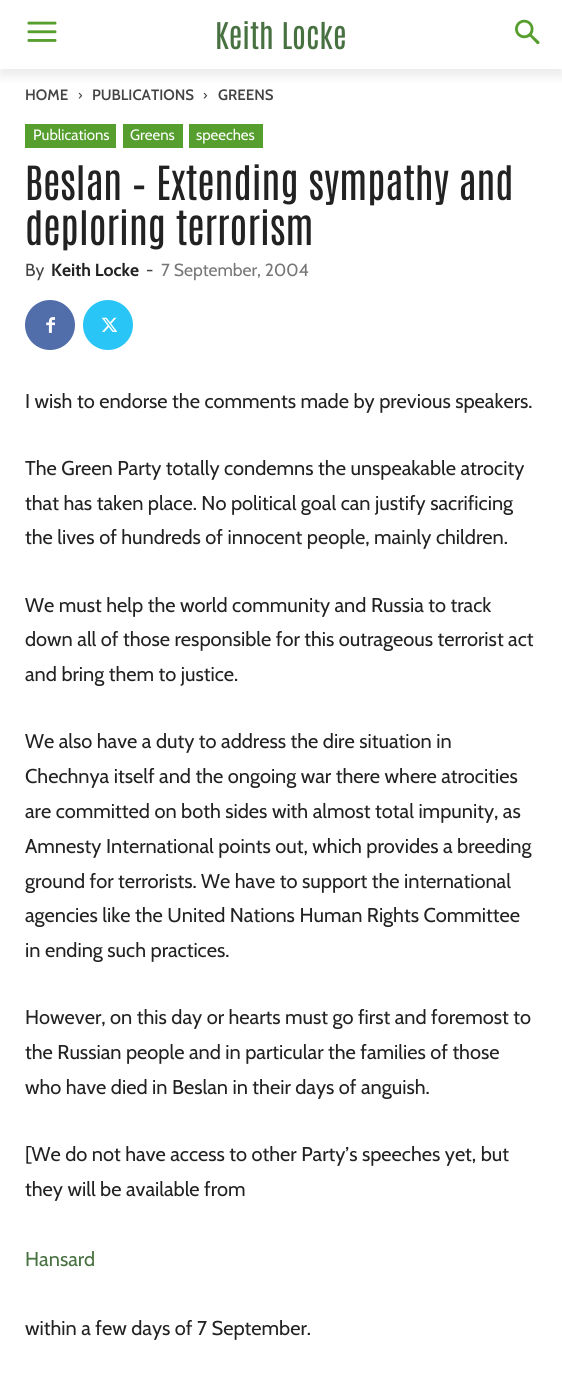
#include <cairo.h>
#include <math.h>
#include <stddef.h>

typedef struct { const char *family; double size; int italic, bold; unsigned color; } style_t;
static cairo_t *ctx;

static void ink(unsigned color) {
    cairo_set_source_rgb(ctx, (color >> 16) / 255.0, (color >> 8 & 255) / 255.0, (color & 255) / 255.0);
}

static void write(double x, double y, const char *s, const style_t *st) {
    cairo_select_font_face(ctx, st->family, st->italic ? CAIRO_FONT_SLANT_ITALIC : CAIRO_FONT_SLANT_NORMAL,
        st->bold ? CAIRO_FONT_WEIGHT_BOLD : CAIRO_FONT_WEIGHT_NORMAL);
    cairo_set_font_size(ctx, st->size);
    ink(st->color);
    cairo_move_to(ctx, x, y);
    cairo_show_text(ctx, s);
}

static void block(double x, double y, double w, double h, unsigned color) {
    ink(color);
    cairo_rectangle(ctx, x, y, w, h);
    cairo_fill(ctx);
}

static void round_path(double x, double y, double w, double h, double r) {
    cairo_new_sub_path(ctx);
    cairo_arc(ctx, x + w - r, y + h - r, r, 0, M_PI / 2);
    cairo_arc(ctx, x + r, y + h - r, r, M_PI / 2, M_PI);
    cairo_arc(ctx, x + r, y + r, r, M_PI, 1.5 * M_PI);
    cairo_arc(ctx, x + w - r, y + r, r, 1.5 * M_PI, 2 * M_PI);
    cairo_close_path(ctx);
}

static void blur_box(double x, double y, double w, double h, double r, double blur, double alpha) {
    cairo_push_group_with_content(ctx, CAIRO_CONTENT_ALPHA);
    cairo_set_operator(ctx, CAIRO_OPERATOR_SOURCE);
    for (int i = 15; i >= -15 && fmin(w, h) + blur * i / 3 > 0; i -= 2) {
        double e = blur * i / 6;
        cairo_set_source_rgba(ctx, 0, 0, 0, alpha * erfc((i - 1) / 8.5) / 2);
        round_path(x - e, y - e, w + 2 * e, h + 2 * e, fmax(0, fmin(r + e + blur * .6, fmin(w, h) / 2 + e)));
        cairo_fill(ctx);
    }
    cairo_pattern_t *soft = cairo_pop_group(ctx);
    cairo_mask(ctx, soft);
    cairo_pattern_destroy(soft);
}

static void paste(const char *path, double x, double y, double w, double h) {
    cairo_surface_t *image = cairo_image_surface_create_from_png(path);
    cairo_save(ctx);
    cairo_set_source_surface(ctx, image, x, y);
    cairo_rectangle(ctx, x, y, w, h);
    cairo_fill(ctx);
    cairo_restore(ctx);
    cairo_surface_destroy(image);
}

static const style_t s1 = {"Antonio", 31.25, 0, 0, 0x487141};
static const style_t s2 = {"Cabin SemiBold", 15, 0, 0, 0x444444};
static const style_t s3 = {"Cabin", 15, 0, 0, 0xffffff};
static const style_t s4 = {"Antonio", 40, 0, 0, 0x222222};
static const style_t s5 = {"Cabin", 17.5, 0, 0, 0x444444};
static const style_t s6 = {"Cabin", 17.5, 0, 1, 0x222222};
static const style_t s7 = {"Cabin", 17.5, 0, 0, 0x767676};
static const style_t s8 = {"Cabin", 20, 0, 0, 0x222222};
static const style_t s9 = {"Cabin", 20, 0, 0, 0x487141};

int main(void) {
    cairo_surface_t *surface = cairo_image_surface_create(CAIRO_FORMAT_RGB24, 562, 1388);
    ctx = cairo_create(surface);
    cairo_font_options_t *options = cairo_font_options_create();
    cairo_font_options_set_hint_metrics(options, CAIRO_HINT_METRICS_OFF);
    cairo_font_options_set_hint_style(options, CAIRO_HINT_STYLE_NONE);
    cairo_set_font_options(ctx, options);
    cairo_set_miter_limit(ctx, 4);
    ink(0xffffff);
    cairo_paint(ctx);
    ink(0x000000);
    blur_box(0, 8, 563, 68, 0, 5, 0.08);
    block(0, 2, 562, 67, 0xffffff);
    paste("pic1.png", 27, 21, 30, 21);
    write(215, 49, "Keith Locke", &s1);
    paste("pic2.png", 515, 19, 25, 26);
    write(25, 100, "HOME", &s2);
    paste("pic3.png", 78, 92, 5, 7);
    write(92, 100, "PUBLICATIONS", &s2);
    paste("pic3.png", 203, 92, 5, 7);
    write(218, 100, "GREENS", &s2);
    block(25, 124, 91, 24, 0x569e2e);
    write(33, 140, "Publications", &s3);
    block(123, 124, 60, 24, 0x569e2e);
    write(130, 140, "Greens", &s3);
    block(189, 124, 74, 24, 0x569e2e);
    write(196, 140, "speeches", &s3);
    write(25, 200, "Beslan – Extending sympathy and", &s4);
    write(25, 245, "deploring terrorism", &s4);
    write(25, 276, "By", &s5);
    write(51, 276, "Keith Locke", &s6);
    write(146, 276, "-", &s5);
    write(161, 276, "7 September, 2004", &s7);
    ink(0x516eab);
    cairo_new_path(ctx);
    cairo_arc(ctx, 50, 325, 25, 0, 2 * M_PI);
    cairo_fill(ctx);
    paste("pic4.png", 46, 317, 9, 16);
    ink(0x29c5f6);
    cairo_arc(ctx, 108, 325, 25, 0, 2 * M_PI);
    cairo_fill(ctx);
    paste("pic5.png", 101, 317, 17, 15);
    write(25, 408, "I wish to endorse the comments made by previous speakers.", &s8);
    write(25, 475, "The Green Party totally condemns the unspeakable atrocity", &s8);
    write(25, 510, "that has taken place. No political goal can justify sacrificing", &s8);
    write(25, 544, "the lives of hundreds of innocent people, mainly children.", &s8);
    write(25, 612, "We must help the world community and Russia to track", &s8);
    write(25, 646, "down all of those responsible for this outrageous terrorist act", &s8);
    write(25, 681, "and bring them to justice.", &s8);
    write(25, 748, "We also have a duty to address the dire situation in", &s8);
    write(25, 783, "Chechnya itself and the ongoing war there where atrocities", &s8);
    write(25, 818, "are committed on both sides with almost total impunity, as", &s8);
    write(25, 853, "Amnesty International points out, which provides a breeding", &s8);
    write(25, 888, "ground for terrorists. We have to support the international", &s8);
    write(25, 922, "agencies like the United Nations Human Rights Committee", &s8);
    write(25, 957, "in ending such practices.", &s8);
    write(25, 1024, "However, on this day or hearts must go first and foremost to", &s8);
    write(25, 1059, "the Russian people and in particular the families of those", &s8);
    write(25, 1094, "who have died in Beslan in their days of anguish.", &s8);
    write(25, 1161, "[We do not have access to other Party’s speeches yet, but", &s8);
    write(25, 1196, "they will be available from", &s8);
    write(25, 1266, "Hansard", &s9);
    write(25, 1335, "within a few days of 7 September.", &s8);
    cairo_surface_write_to_png(surface, "screenshot.png");
    cairo_font_options_destroy(options);
    cairo_destroy(ctx);
    cairo_surface_destroy(surface);
    return 0;
}
